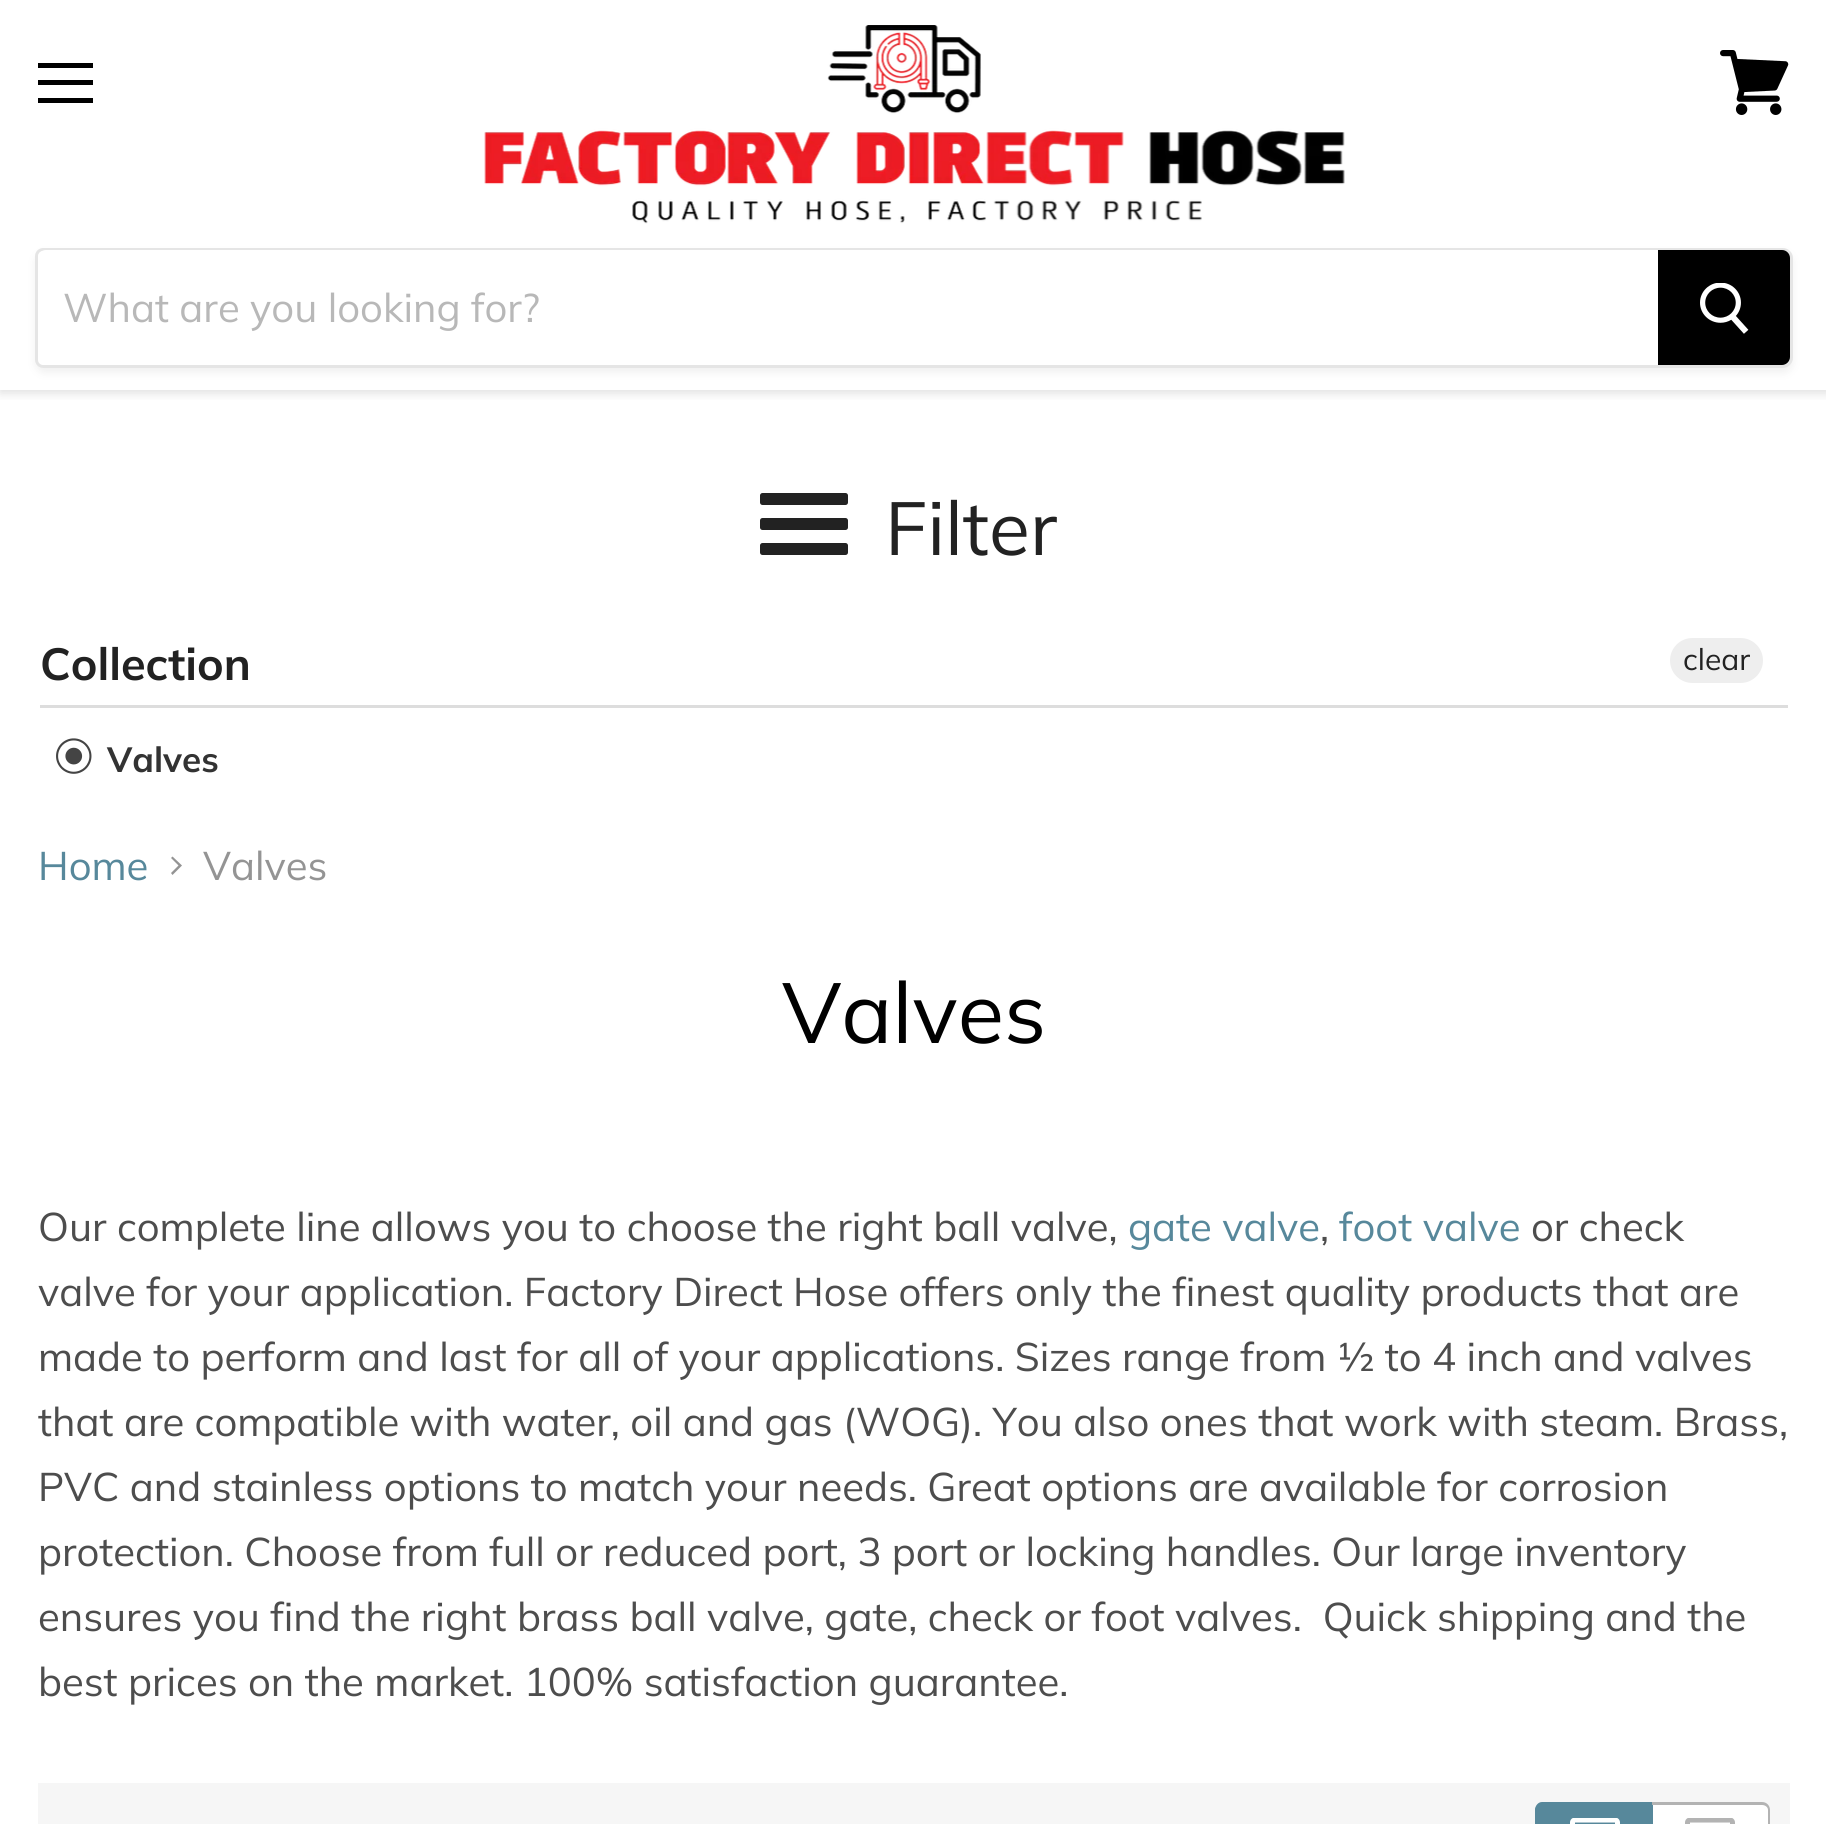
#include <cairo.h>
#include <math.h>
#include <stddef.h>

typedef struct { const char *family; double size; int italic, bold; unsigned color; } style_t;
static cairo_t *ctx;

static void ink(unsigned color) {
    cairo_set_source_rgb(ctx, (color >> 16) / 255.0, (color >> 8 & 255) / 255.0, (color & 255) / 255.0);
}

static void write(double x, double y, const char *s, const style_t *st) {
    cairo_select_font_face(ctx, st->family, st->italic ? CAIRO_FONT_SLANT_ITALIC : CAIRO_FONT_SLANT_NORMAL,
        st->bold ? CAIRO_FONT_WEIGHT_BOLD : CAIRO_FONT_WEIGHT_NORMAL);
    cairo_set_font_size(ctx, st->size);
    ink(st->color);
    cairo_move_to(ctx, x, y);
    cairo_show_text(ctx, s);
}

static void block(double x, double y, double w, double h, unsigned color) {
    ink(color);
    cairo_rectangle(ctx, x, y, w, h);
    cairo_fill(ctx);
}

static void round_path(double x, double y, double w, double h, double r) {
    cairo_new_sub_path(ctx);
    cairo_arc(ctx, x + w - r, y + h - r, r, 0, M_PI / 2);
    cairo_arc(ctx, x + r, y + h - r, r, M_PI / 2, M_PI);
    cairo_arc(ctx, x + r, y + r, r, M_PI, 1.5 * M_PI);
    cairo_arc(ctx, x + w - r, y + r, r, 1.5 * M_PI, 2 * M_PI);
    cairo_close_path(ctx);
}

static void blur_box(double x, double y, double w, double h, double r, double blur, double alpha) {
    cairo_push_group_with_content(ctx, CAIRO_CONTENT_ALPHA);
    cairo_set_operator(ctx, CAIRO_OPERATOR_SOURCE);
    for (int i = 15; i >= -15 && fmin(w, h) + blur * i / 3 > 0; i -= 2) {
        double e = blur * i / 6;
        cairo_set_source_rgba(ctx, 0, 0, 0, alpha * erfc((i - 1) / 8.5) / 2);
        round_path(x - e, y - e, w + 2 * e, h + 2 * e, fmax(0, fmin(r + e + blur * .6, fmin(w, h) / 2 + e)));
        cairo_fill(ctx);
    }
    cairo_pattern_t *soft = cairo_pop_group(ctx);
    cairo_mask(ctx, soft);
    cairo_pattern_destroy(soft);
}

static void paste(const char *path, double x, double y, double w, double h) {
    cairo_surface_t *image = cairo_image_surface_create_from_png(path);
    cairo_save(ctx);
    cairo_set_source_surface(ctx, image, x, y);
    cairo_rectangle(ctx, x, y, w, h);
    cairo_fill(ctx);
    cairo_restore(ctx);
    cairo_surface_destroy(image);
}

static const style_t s1 = {"Muli", 40, 0, 0, 0xb8b8b8};
static const style_t s2 = {"Muli", 75, 0, 0, 0x222222};
static const style_t s3 = {"Muli", 45, 0, 1, 0x222222};
static const style_t s4 = {"Muli", 30, 0, 0, 0x222222};
static const style_t s5 = {"Muli", 35, 0, 1, 0x333333};
static const style_t s6 = {"Muli", 40, 0, 0, 0x57889b};
static const style_t s7 = {"Muli", 40, 0, 0, 0x949494};
static const style_t s8 = {"Muli", 85, 0, 0, 0x000000};
static const style_t s9 = {"Muli", 40, 0, 0, 0x4d4d4d};

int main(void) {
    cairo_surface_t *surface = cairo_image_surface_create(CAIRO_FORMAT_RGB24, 1826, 1824);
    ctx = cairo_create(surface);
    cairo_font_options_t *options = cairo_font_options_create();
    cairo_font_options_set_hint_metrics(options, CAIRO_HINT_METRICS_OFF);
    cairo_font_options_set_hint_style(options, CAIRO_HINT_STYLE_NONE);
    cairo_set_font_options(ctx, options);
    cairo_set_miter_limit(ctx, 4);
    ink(0xffffff);
    cairo_paint(ctx);
    cairo_save(ctx);
    cairo_rectangle(ctx, 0, 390, 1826, 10);
    cairo_clip(ctx);
    ink(0x7f7f7f);
    blur_box(0, 3, 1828, 390, 0, 5, 0.25);
    cairo_restore(ctx);
    block(38, 63, 55, 5, 0x000000);
    block(38, 80, 55, 5, 0x000000);
    block(38, 98, 55, 5, 0x000000);
    paste("pic1.png", 1720, 50, 69, 65);
    paste("pic2.png", 484, 25, 861, 199);
    cairo_save(ctx);
    cairo_set_fill_rule(ctx, CAIRO_FILL_RULE_EVEN_ODD);
    cairo_new_path(ctx);
    cairo_move_to(ctx, 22, 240);
    cairo_line_to(ctx, 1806, 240);
    cairo_line_to(ctx, 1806, 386);
    cairo_line_to(ctx, 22, 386);
    cairo_close_path(ctx);
    cairo_move_to(ctx, 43, 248);
    cairo_line_to(ctx, 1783, 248);
    cairo_curve_to(ctx, 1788.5, 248, 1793, 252.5, 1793, 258);
    cairo_line_to(ctx, 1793, 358);
    cairo_curve_to(ctx, 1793, 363.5, 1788.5, 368, 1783, 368);
    cairo_line_to(ctx, 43, 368);
    cairo_curve_to(ctx, 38.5, 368, 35, 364.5, 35, 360);
    cairo_line_to(ctx, 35, 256);
    cairo_curve_to(ctx, 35, 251.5, 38.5, 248, 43, 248);
    cairo_close_path(ctx);
    cairo_clip(ctx);
    ink(0x7f7f7f);
    blur_box(35, 253, 1758, 120, 10, 4, 0.11);
    cairo_restore(ctx);
    cairo_new_path(ctx);
    cairo_move_to(ctx, 43, 249.5);
    cairo_line_to(ctx, 1783, 249.5);
    cairo_curve_to(ctx, 1787.5, 249.5, 1791.5, 253.5, 1791.5, 258);
    cairo_line_to(ctx, 1791.5, 358);
    cairo_curve_to(ctx, 1791.5, 362.5, 1787.5, 366.5, 1783, 366.5);
    cairo_line_to(ctx, 43, 366.5);
    cairo_curve_to(ctx, 39.5, 366.5, 36.5, 363.5, 36.5, 360);
    cairo_line_to(ctx, 36.5, 256);
    cairo_curve_to(ctx, 36.5, 252.5, 39.5, 249.5, 43, 249.5);
    cairo_close_path(ctx);
    cairo_set_source_rgba(ctx, 0.498, 0.498, 0.498, 0.2);
    cairo_set_line_width(ctx, 3);
    cairo_stroke(ctx);
    ink(0xffffff);
    cairo_new_path(ctx);
    cairo_move_to(ctx, 46, 250);
    cairo_line_to(ctx, 1658, 250);
    cairo_line_to(ctx, 1658, 365);
    cairo_line_to(ctx, 46, 365);
    cairo_curve_to(ctx, 41.5, 365, 38, 361.5, 38, 357);
    cairo_line_to(ctx, 38, 258);
    cairo_curve_to(ctx, 38, 253.5, 41.5, 250, 46, 250);
    cairo_close_path(ctx);
    cairo_fill(ctx);
    write(63, 322, "What are you looking for?", &s1);
    ink(0x000000);
    cairo_new_path(ctx);
    cairo_move_to(ctx, 1659.5, 251.5);
    cairo_line_to(ctx, 1782, 251.5);
    cairo_curve_to(ctx, 1785.5, 251.5, 1788.5, 254.5, 1788.5, 258);
    cairo_line_to(ctx, 1788.5, 357);
    cairo_curve_to(ctx, 1788.5, 360.5, 1785.5, 363.5, 1782, 363.5);
    cairo_line_to(ctx, 1659.5, 363.5);
    cairo_close_path(ctx);
    cairo_fill_preserve(ctx);
    cairo_stroke(ctx);
    paste("pic3.png", 1700, 283, 49, 51);
    ink(0x222222);
    round_path(760, 518, 88, 12, 2.5);
    cairo_fill(ctx);
    round_path(760, 493, 88, 12, 2.5);
    cairo_fill(ctx);
    round_path(760, 543, 88, 12, 2.5);
    cairo_fill(ctx);
    write(885, 555, "Filter", &s2);
    block(40, 705, 1748, 3, 0xdddddd);
    write(40, 680, "Collection", &s3);
    ink(0xeeeeee);
    round_path(1670, 638, 93, 45, 22.5);
    cairo_fill(ctx);
    write(1683, 670, "clear", &s4);
    paste("pic4.png", 56, 738, 36, 36);
    write(107, 772, "Valves", &s5);
    write(38, 880, "Home", &s6);
    ink(0x949494);
    cairo_set_fill_rule(ctx, CAIRO_FILL_RULE_EVEN_ODD);
    cairo_new_path(ctx);
    cairo_move_to(ctx, 171, 873);
    cairo_line_to(ctx, 172.5, 875);
    cairo_line_to(ctx, 182, 865.5);
    cairo_line_to(ctx, 172.5, 856.5);
    cairo_line_to(ctx, 171, 858);
    cairo_line_to(ctx, 178.5, 865.5);
    cairo_close_path(ctx);
    cairo_fill(ctx);
    write(203, 880, "Valves", &s7);
    write(782, 1043, "Valves", &s8);
    write(38, 1241, "Our complete line allows you to choose the right ball valve,", &s9);
    write(1128, 1241, "gate valve", &s6);
    write(1320, 1241, ",", &s9);
    write(1339, 1241, "foot valve", &s6);
    write(1531, 1241, "or check", &s9);
    write(38, 1306, "valve for your application. Factory Direct Hose offers only the finest quality products that are", &s9);
    write(38, 1371, "made to perform and last for all of your applications. Sizes range from ½ to 4 inch and valves", &s9);
    write(38, 1436, "that are compatible with water, oil and gas (WOG). You also ones that work with steam. Brass,", &s9);
    write(38, 1501, "PVC and stainless options to match your needs. Great options are available for corrosion", &s9);
    write(38, 1566, "protection. Choose from full or reduced port, 3 port or locking handles. Our large inventory", &s9);
    write(38, 1631, "ensures you find the right brass ball valve, gate, check or foot valves.  Quick shipping and the", &s9);
    write(38, 1696, "best prices on the market. 100% satisfaction guarantee.", &s9);
    block(38, 1783, 1752, 41, 0xf6f6f6);
    ink(0x57889b);
    cairo_new_path(ctx);
    cairo_move_to(ctx, 1543, 1803);
    cairo_line_to(ctx, 1653, 1803);
    cairo_line_to(ctx, 1653, 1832);
    cairo_line_to(ctx, 1543, 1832);
    cairo_curve_to(ctx, 1538.5, 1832, 1535, 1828.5, 1535, 1824);
    cairo_line_to(ctx, 1535, 1811);
    cairo_curve_to(ctx, 1535, 1806.5, 1538.5, 1803, 1543, 1803);
    cairo_close_path(ctx);
    cairo_fill(ctx);
    cairo_new_path(ctx);
    cairo_move_to(ctx, 1542, 1802);
    cairo_line_to(ctx, 1652, 1802);
    cairo_line_to(ctx, 1652, 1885);
    cairo_line_to(ctx, 1542, 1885);
    cairo_curve_to(ctx, 1538, 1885, 1535, 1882, 1535, 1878);
    cairo_line_to(ctx, 1535, 1810);
    cairo_curve_to(ctx, 1535, 1806, 1538, 1802, 1542, 1802);
    cairo_close_path(ctx);
    cairo_move_to(ctx, 1542, 1805);
    cairo_line_to(ctx, 1652, 1805);
    cairo_line_to(ctx, 1652, 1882);
    cairo_line_to(ctx, 1542, 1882);
    cairo_curve_to(ctx, 1540, 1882, 1538, 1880, 1538, 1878);
    cairo_line_to(ctx, 1538, 1810);
    cairo_curve_to(ctx, 1538, 1807, 1540, 1805, 1542, 1805);
    cairo_close_path(ctx);
    cairo_fill(ctx);
    paste("pic5.png", 1570, 1818, 50, 6);
    ink(0xffffff);
    cairo_new_path(ctx);
    cairo_move_to(ctx, 1653, 1803);
    cairo_line_to(ctx, 1762, 1803);
    cairo_curve_to(ctx, 1766.5, 1803, 1770, 1806.5, 1770, 1811);
    cairo_line_to(ctx, 1770, 1824);
    cairo_curve_to(ctx, 1770, 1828.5, 1766.5, 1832, 1762, 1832);
    cairo_line_to(ctx, 1653, 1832);
    cairo_close_path(ctx);
    cairo_fill(ctx);
    ink(0xb3b3b3);
    cairo_new_path(ctx);
    cairo_move_to(ctx, 1652, 1802);
    cairo_line_to(ctx, 1762, 1802);
    cairo_curve_to(ctx, 1767, 1802, 1770, 1806, 1770, 1810);
    cairo_line_to(ctx, 1770, 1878);
    cairo_curve_to(ctx, 1770, 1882, 1767, 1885, 1762, 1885);
    cairo_line_to(ctx, 1652, 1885);
    cairo_close_path(ctx);
    cairo_move_to(ctx, 1652, 1805);
    cairo_line_to(ctx, 1762, 1805);
    cairo_curve_to(ctx, 1765, 1805, 1768, 1807, 1768, 1810);
    cairo_line_to(ctx, 1768, 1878);
    cairo_curve_to(ctx, 1768, 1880, 1765, 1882, 1762, 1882);
    cairo_line_to(ctx, 1652, 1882);
    cairo_close_path(ctx);
    cairo_fill(ctx);
    paste("pic6.png", 1685, 1818, 50, 6);
    cairo_surface_write_to_png(surface, "screenshot.png");
    cairo_font_options_destroy(options);
    cairo_destroy(ctx);
    cairo_surface_destroy(surface);
    return 0;
}
